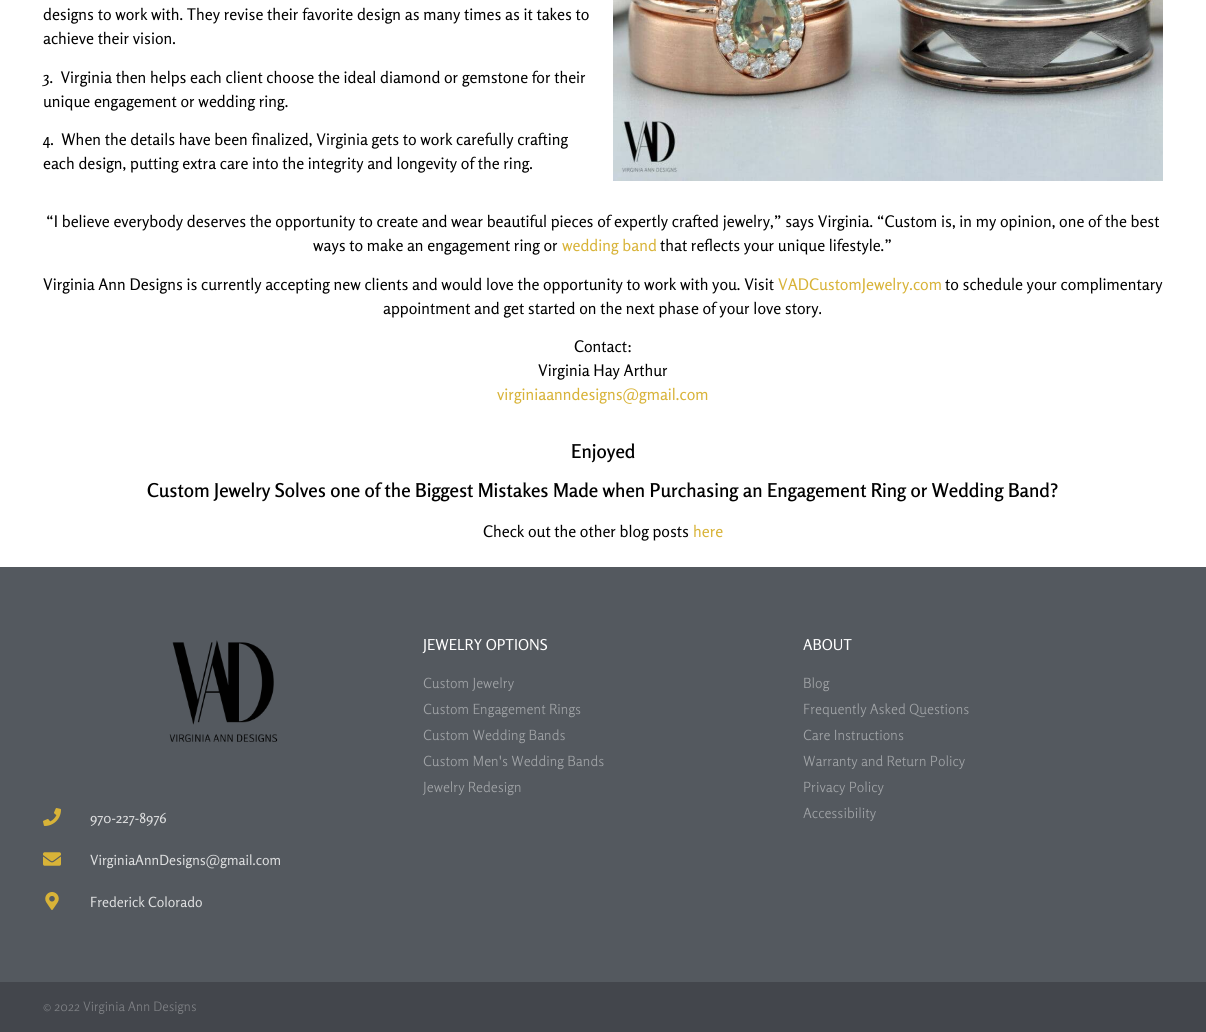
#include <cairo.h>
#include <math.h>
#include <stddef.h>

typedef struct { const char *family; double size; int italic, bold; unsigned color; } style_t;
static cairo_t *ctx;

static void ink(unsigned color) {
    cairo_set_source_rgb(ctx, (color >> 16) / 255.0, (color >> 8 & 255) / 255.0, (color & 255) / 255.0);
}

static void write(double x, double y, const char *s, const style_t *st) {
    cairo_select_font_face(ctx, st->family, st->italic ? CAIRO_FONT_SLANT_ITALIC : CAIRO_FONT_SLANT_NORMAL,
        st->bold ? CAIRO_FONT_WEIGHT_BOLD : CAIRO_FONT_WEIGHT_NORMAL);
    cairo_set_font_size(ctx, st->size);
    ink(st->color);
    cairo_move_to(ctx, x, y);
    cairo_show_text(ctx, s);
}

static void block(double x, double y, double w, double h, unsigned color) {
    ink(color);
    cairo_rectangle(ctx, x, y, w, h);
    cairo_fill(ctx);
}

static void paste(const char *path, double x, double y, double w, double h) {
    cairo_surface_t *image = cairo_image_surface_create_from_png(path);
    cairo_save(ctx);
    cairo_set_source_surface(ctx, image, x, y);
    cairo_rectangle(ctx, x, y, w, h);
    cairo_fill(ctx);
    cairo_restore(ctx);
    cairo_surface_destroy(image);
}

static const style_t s1 = {"Rosario", 16, 0, 0, 0x000000};
static const style_t s2 = {"Rosario", 16, 0, 0, 0xd8b338};
static const style_t s3 = {"Rosario SemiBold", 19, 0, 0, 0x000000};
static const style_t s4 = {"Rosario", 15, 0, 0, 0xffffff};
static const style_t s5 = {"Rosario Light", 14, 0, 0, 0xa1a4a7};
static const style_t s6 = {"Rosario", 14, 0, 0, 0xdddedf};
static const style_t s7 = {"Rosario Light", 13, 0, 0, 0x7f8185};

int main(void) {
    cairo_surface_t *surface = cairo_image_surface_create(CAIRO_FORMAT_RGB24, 1206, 1032);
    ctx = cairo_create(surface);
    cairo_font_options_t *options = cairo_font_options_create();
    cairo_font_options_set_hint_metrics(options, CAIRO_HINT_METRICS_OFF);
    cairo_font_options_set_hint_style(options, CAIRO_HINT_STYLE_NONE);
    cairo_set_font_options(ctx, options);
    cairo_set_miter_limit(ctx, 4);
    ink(0xffffff);
    cairo_paint(ctx);
    write(43, 20, "designs to work with. They revise their favorite design as many times as it takes to", &s1);
    write(43, 44, "achieve their vision.", &s1);
    write(43, 83, "3.  Virginia then helps each client choose the ideal diamond or gemstone for their", &s1);
    write(43, 107, "unique engagement or wedding ring.", &s1);
    write(43, 145, "4.  When the details have been finalized, Virginia gets to work carefully crafting", &s1);
    write(43, 169, "each design, putting extra care into the integrity and longevity of the ring.", &s1);
    paste("pic1.png", 613, 0, 550, 181);
    write(46, 227, "“I believe everybody deserves the opportunity to create and wear beautiful pieces of expertly crafted jewelry,” says Virginia. “Custom is, in my opinion, one of the best", &s1);
    write(313, 251, "ways to make an engagement ring or", &s1);
    write(562, 251, "wedding band", &s2);
    write(660, 251, "that reflects your unique lifestyle.”", &s1);
    write(43, 290, "Virginia Ann Designs is currently accepting new clients and would love the opportunity to work with you. Visit", &s1);
    write(778, 290, "VADCustomJewelry.com", &s2);
    write(945, 290, "to schedule your complimentary", &s1);
    write(383, 314, "appointment and get started on the next phase of your love story.", &s1);
    write(574, 352, "Contact:", &s1);
    write(538, 376, "Virginia Hay Arthur", &s1);
    write(497, 400, "virginiaanndesigns@gmail.com", &s2);
    write(571, 458, "Enjoyed", &s3);
    write(147, 497, "Custom Jewelry Solves one of the Biggest Mistakes Made when Purchasing an Engagement Ring or Wedding Band?", &s3);
    write(483, 537, "Check out the other blog posts", &s1);
    write(693, 537, "here", &s2);
    block(0, 567, 1206, 415, 0x54595f);
    write(423, 650, "JEWELRY OPTIONS", &s4);
    write(423, 688, "Custom Jewelry", &s5);
    write(423, 714, "Custom Engagement Rings", &s5);
    write(423, 740, "Custom Wedding Bands", &s5);
    write(423, 766, "Custom Men's Wedding Bands", &s5);
    write(423, 792, "Jewelry Redesign", &s5);
    write(803, 650, "ABOUT", &s4);
    write(803, 688, "Blog", &s5);
    write(803, 714, "Frequently Asked Questions", &s5);
    write(803, 740, "Care Instructions", &s5);
    write(803, 766, "Warranty and Return Policy", &s5);
    write(803, 792, "Privacy Policy", &s5);
    write(803, 818, "Accessibility", &s5);
    paste("pic2.png", 169, 640, 109, 102);
    paste("pic3.png", 43, 808, 18, 18);
    write(90, 823, "970-227-8976", &s6);
    paste("pic4.png", 43, 852, 18, 14);
    write(90, 865, "VirginiaAnnDesigns@gmail.com", &s6);
    paste("pic5.png", 45, 892, 14, 18);
    write(90, 907, "Frederick Colorado", &s6);
    block(0, 982, 1206, 50, 0x43464c);
    write(43, 1011, "© 2022 Virginia Ann Designs", &s7);
    cairo_surface_write_to_png(surface, "screenshot.png");
    cairo_font_options_destroy(options);
    cairo_destroy(ctx);
    cairo_surface_destroy(surface);
    return 0;
}
